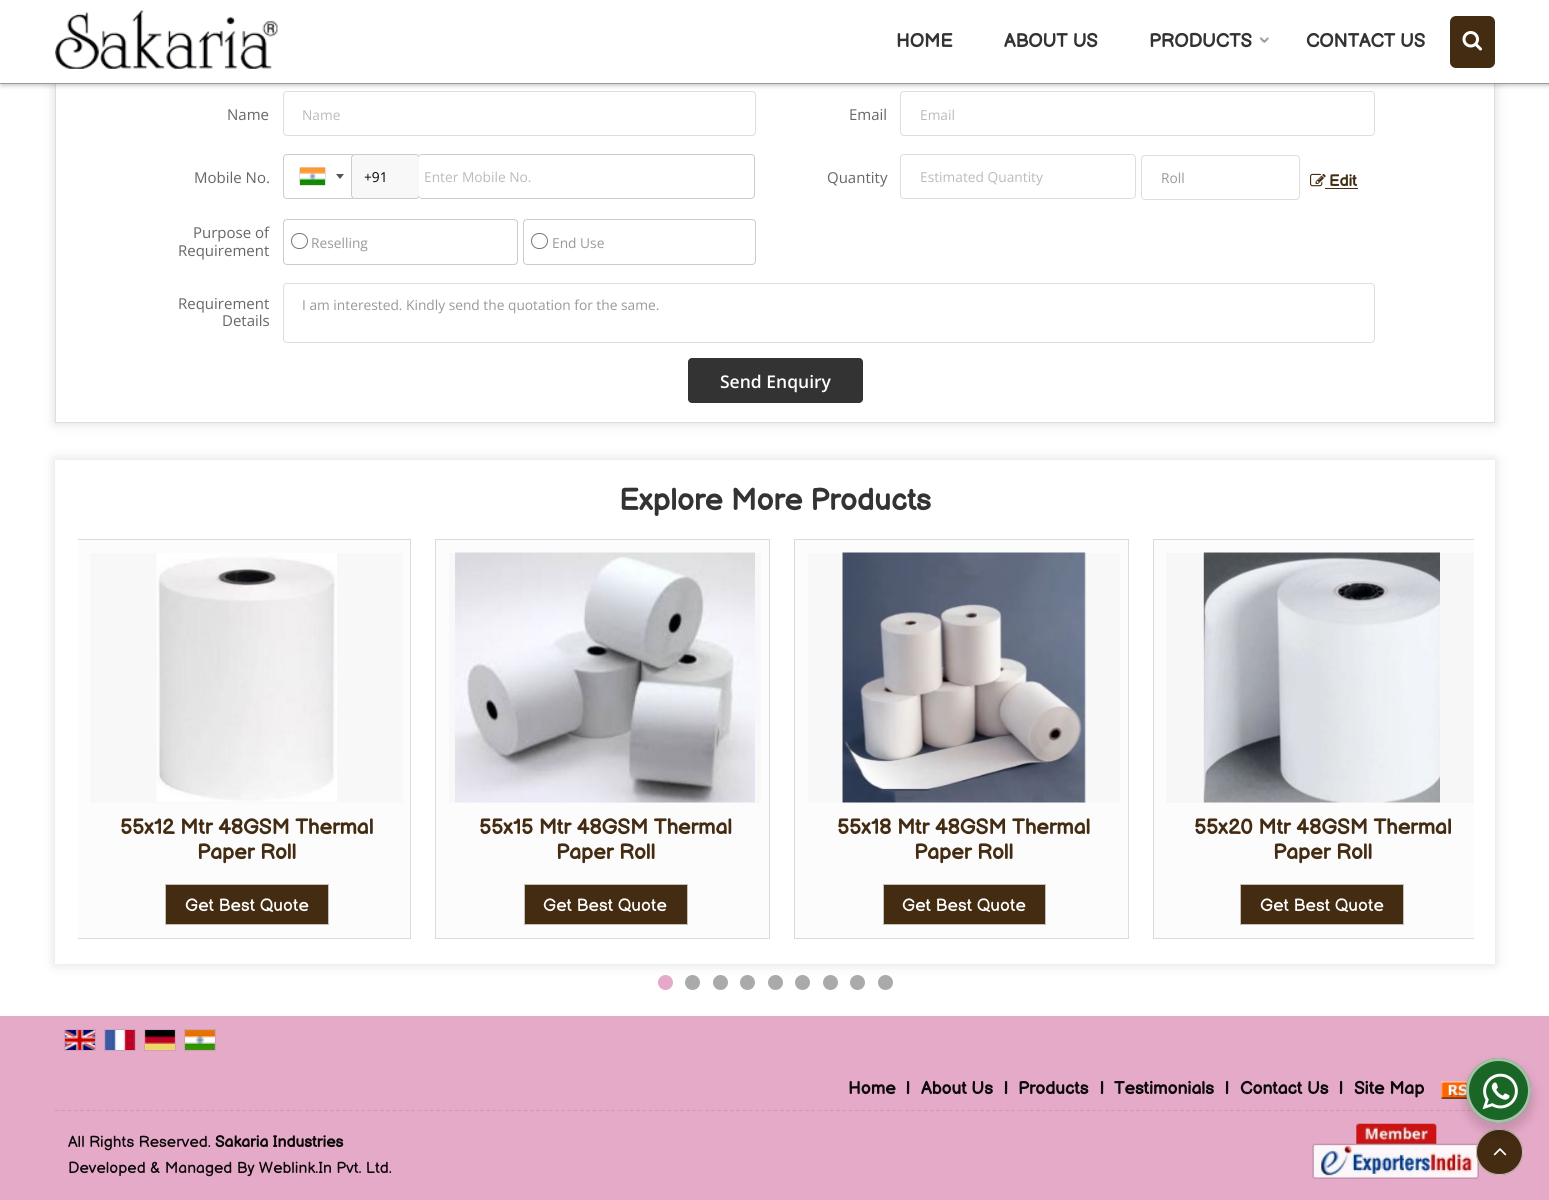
#include <cairo.h>
#include <math.h>
#include <stddef.h>

typedef struct { const char *family; double size; int italic, bold; unsigned color; } style_t;
static cairo_t *ctx;

static void ink(unsigned color) {
    cairo_set_source_rgb(ctx, (color >> 16) / 255.0, (color >> 8 & 255) / 255.0, (color & 255) / 255.0);
}

static void write(double x, double y, const char *s, const style_t *st) {
    cairo_select_font_face(ctx, st->family, st->italic ? CAIRO_FONT_SLANT_ITALIC : CAIRO_FONT_SLANT_NORMAL,
        st->bold ? CAIRO_FONT_WEIGHT_BOLD : CAIRO_FONT_WEIGHT_NORMAL);
    cairo_set_font_size(ctx, st->size);
    ink(st->color);
    cairo_move_to(ctx, x, y);
    cairo_show_text(ctx, s);
}

static void block(double x, double y, double w, double h, unsigned color) {
    ink(color);
    cairo_rectangle(ctx, x, y, w, h);
    cairo_fill(ctx);
}

static void round_path(double x, double y, double w, double h, double r) {
    cairo_new_sub_path(ctx);
    cairo_arc(ctx, x + w - r, y + h - r, r, 0, M_PI / 2);
    cairo_arc(ctx, x + r, y + h - r, r, M_PI / 2, M_PI);
    cairo_arc(ctx, x + r, y + r, r, M_PI, 1.5 * M_PI);
    cairo_arc(ctx, x + w - r, y + r, r, 1.5 * M_PI, 2 * M_PI);
    cairo_close_path(ctx);
}

static void blur_box(double x, double y, double w, double h, double r, double blur, double alpha) {
    cairo_push_group_with_content(ctx, CAIRO_CONTENT_ALPHA);
    cairo_set_operator(ctx, CAIRO_OPERATOR_SOURCE);
    for (int i = 15; i >= -15 && fmin(w, h) + blur * i / 3 > 0; i -= 2) {
        double e = blur * i / 6;
        cairo_set_source_rgba(ctx, 0, 0, 0, alpha * erfc((i - 1) / 8.5) / 2);
        round_path(x - e, y - e, w + 2 * e, h + 2 * e, fmax(0, fmin(r + e + blur * .6, fmin(w, h) / 2 + e)));
        cairo_fill(ctx);
    }
    cairo_pattern_t *soft = cairo_pop_group(ctx);
    cairo_mask(ctx, soft);
    cairo_pattern_destroy(soft);
}

static void paste(const char *path, double x, double y, double w, double h) {
    cairo_surface_t *image = cairo_image_surface_create_from_png(path);
    cairo_save(ctx);
    cairo_set_source_surface(ctx, image, x, y);
    cairo_rectangle(ctx, x, y, w, h);
    cairo_fill(ctx);
    cairo_restore(ctx);
    cairo_surface_destroy(image);
}

static const style_t s1 = {"Balsamiq Sans", 18.75, 0, 1, 0x333333};
static const style_t s2 = {"Open Sans", 15, 0, 0, 0x666666};
static const style_t s3 = {"Open Sans", 13.75, 0, 0, 0xbbbbbb};
static const style_t s4 = {"Open Sans", 13.75, 0, 0, 0x000000};
static const style_t s5 = {"Open Sans", 13.75, 0, 0, 0x999999};
static const style_t s6 = {"Balsamiq Sans", 15.75, 0, 1, 0x442c12};
static const style_t s7 = {"Open Sans SemiBold", 17.5, 0, 0, 0xffffff};
static const style_t s8 = {"Balsamiq Sans", 30, 0, 1, 0x333333};
static const style_t s9 = {"Balsamiq Sans", 21, 0, 1, 0x442c12};
static const style_t s10 = {"Balsamiq Sans", 17.5, 0, 0, 0xffffff};
static const style_t s11 = {"Balsamiq Sans", 17.5, 0, 1, 0x0c090a};
static const style_t s12 = {"Balsamiq Sans", 15.75, 0, 0, 0x0c090a};
static const style_t s13 = {"Balsamiq Sans", 15.75, 0, 1, 0x0c090a};

int main(void) {
    cairo_surface_t *surface = cairo_image_surface_create(CAIRO_FORMAT_RGB24, 1549, 1200);
    ctx = cairo_create(surface);
    cairo_font_options_t *options = cairo_font_options_create();
    cairo_font_options_set_hint_metrics(options, CAIRO_HINT_METRICS_OFF);
    cairo_font_options_set_hint_style(options, CAIRO_HINT_STYLE_NONE);
    cairo_set_font_options(ctx, options);
    cairo_set_miter_limit(ctx, 4);
    ink(0xffffff);
    cairo_paint(ctx);
    cairo_save(ctx);
    cairo_set_fill_rule(ctx, CAIRO_FILL_RULE_EVEN_ODD);
    cairo_new_path(ctx);
    cairo_move_to(ctx, 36, 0);
    cairo_line_to(ctx, 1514, 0);
    cairo_line_to(ctx, 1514, 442);
    cairo_line_to(ctx, 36, 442);
    cairo_close_path(ctx);
    cairo_move_to(ctx, 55, 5);
    cairo_line_to(ctx, 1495, 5);
    cairo_line_to(ctx, 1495, 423);
    cairo_line_to(ctx, 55, 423);
    cairo_close_path(ctx);
    cairo_clip(ctx);
    ink(0xcccccc);
    blur_box(55, 5, 1440, 418, 0, 6, 0.67);
    cairo_restore(ctx);
    cairo_rectangle(ctx, 55.5, 5.5, 1439, 417);
    cairo_set_source_rgba(ctx, 0, 0, 0, 0.13);
    cairo_set_line_width(ctx, 1);
    cairo_stroke(ctx);
    round_path(283.5, 91.5, 472, 44, 3.5);
    ink(0xdedede);
    cairo_stroke(ctx);
    round_path(900.5, 91.5, 474, 44, 3.5);
    cairo_stroke(ctx);
    ink(0x000000);
    blur_box(1, 3, 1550, 83, 0, 2, 0.2);
    block(0, 0, 1549, 83, 0xffffff);
    block(0, 83, 1549, 1, 0x999999);
    paste("pic1.png", 55, 10, 223, 59);
    write(896, 47, "HOME", &s1);
    write(1004, 47, "ABOUT US", &s1);
    write(1149, 47, "PRODUCTS", &s1);
    paste("pic2.png", 1259, 37, 10, 7);
    write(1306, 47, "CONTACT US", &s1);
    ink(0x442c12);
    round_path(1450, 16, 45, 52, 6);
    cairo_fill(ctx);
    paste("pic3.png", 1462, 31, 20, 20);
    write(227, 120, "Name", &s2);
    write(302, 120, "Name", &s3);
    write(849, 120, "Email", &s2);
    write(920, 120, "Email", &s3);
    write(194, 183, "Mobile No.", &s2);
    cairo_new_path(ctx);
    cairo_move_to(ctx, 287, 154.5);
    cairo_line_to(ctx, 352.5, 154.5);
    cairo_line_to(ctx, 352.5, 198.5);
    cairo_line_to(ctx, 287, 198.5);
    cairo_curve_to(ctx, 285, 198.5, 283.5, 197, 283.5, 195);
    cairo_line_to(ctx, 283.5, 158);
    cairo_curve_to(ctx, 283.5, 156, 285, 154.5, 287, 154.5);
    cairo_close_path(ctx);
    ink(0xcccccc);
    cairo_stroke(ctx);
    ink(0x888888);
    blur_box(300, 168, 25, 17, 0, 0.5, 1);
    paste("pic4.png", 300, 167, 25, 18);
    ink(0x555555);
    cairo_new_path(ctx);
    cairo_move_to(ctx, 336, 174);
    cairo_line_to(ctx, 344, 174);
    cairo_line_to(ctx, 340, 179);
    cairo_close_path(ctx);
    cairo_fill(ctx);
    ink(0xf8f8f8);
    round_path(351.5, 154.5, 68, 44, 3.5);
    cairo_fill_preserve(ctx);
    ink(0xcccccc);
    cairo_stroke(ctx);
    write(364, 182, "+91", &s4);
    ink(0xffffff);
    cairo_new_path(ctx);
    cairo_move_to(ctx, 422, 155);
    cairo_line_to(ctx, 751, 155);
    cairo_curve_to(ctx, 753, 155, 754, 156, 754, 158);
    cairo_line_to(ctx, 754, 195);
    cairo_curve_to(ctx, 754, 196, 753, 198, 751, 198);
    cairo_line_to(ctx, 422, 198);
    cairo_curve_to(ctx, 420, 198, 419, 196, 419, 195);
    cairo_line_to(ctx, 419, 158);
    cairo_curve_to(ctx, 419, 156, 420, 155, 422, 155);
    cairo_close_path(ctx);
    cairo_fill(ctx);
    ink(0xcccccc);
    cairo_set_fill_rule(ctx, CAIRO_FILL_RULE_EVEN_ODD);
    cairo_new_path(ctx);
    cairo_move_to(ctx, 422, 154);
    cairo_line_to(ctx, 751, 154);
    cairo_curve_to(ctx, 753, 154, 755, 155, 755, 158);
    cairo_line_to(ctx, 755, 195);
    cairo_curve_to(ctx, 755, 197, 753, 199, 751, 199);
    cairo_line_to(ctx, 422, 199);
    cairo_curve_to(ctx, 420, 199, 419, 197, 419, 195);
    cairo_line_to(ctx, 419, 158);
    cairo_curve_to(ctx, 419, 155, 420, 154, 422, 154);
    cairo_close_path(ctx);
    cairo_move_to(ctx, 422, 155);
    cairo_line_to(ctx, 751, 155);
    cairo_curve_to(ctx, 753, 155, 754, 156, 754, 158);
    cairo_line_to(ctx, 754, 195);
    cairo_curve_to(ctx, 754, 196, 753, 198, 751, 198);
    cairo_line_to(ctx, 422, 198);
    cairo_curve_to(ctx, 420, 198, 419, 196, 419, 195);
    cairo_line_to(ctx, 419, 158);
    cairo_curve_to(ctx, 419, 156, 420, 155, 422, 155);
    cairo_close_path(ctx);
    cairo_fill(ctx);
    write(424, 182, "Enter Mobile No.", &s3);
    write(827, 183, "Quantity", &s2);
    round_path(900.5, 154.5, 235, 44, 3.5);
    ink(0xdedede);
    cairo_stroke(ctx);
    write(920, 182, "Estimated Quantity", &s3);
    round_path(1141.5, 155.5, 158, 44, 3.5);
    ink(0xdedede);
    cairo_stroke(ctx);
    write(1161, 183, "Roll", &s5);
    paste("pic5.png", 1310, 173, 16, 14);
    write(1329, 186, "Edit", &s6);
    block(1325, 188, 33, 1, 0x442c12);
    write(193, 238, "Purpose of", &s2);
    write(178, 256, "Requirement", &s2);
    round_path(283.5, 219.5, 234, 45, 3.5);
    ink(0xcccccc);
    cairo_stroke(ctx);
    round_path(291.5, 233.5, 16, 15, 7.5);
    ink(0x767676);
    cairo_stroke(ctx);
    write(311, 248, "Reselling", &s5);
    round_path(523.5, 219.5, 232, 45, 3.5);
    ink(0xcccccc);
    cairo_stroke(ctx);
    round_path(531.5, 233.5, 16, 15, 7.5);
    ink(0x767676);
    cairo_stroke(ctx);
    write(552, 248, "End Use", &s5);
    write(178, 309, "Requirement", &s2);
    write(222, 326, "Details", &s2);
    round_path(283.5, 283.5, 1091, 59, 3.5);
    ink(0xdedede);
    cairo_stroke(ctx);
    write(302, 310, "I am interested. Kindly send the quotation for the same.", &s5);
    ink(0x333333);
    round_path(688, 358, 175, 45, 4);
    cairo_fill(ctx);
    write(720, 388, "Send Enquiry", &s7);
    cairo_save(ctx);
    cairo_new_path(ctx);
    cairo_move_to(ctx, 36, 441);
    cairo_line_to(ctx, 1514, 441);
    cairo_line_to(ctx, 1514, 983);
    cairo_line_to(ctx, 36, 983);
    cairo_close_path(ctx);
    cairo_move_to(ctx, 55, 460);
    cairo_line_to(ctx, 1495, 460);
    cairo_line_to(ctx, 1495, 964);
    cairo_line_to(ctx, 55, 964);
    cairo_close_path(ctx);
    cairo_clip(ctx);
    ink(0xcccccc);
    blur_box(55, 460, 1440, 504, 0, 6, 0.67);
    cairo_restore(ctx);
    write(619, 510, "Explore More Products", &s8);
    block(78, 540, 332, 398, 0xfcfcfc);
    cairo_save(ctx);
    cairo_set_fill_rule(ctx, CAIRO_FILL_RULE_WINDING);
    cairo_rectangle(ctx, 78, 539, 1396, 400);
    cairo_clip(ctx);
    cairo_rectangle(ctx, 76.5, 539.5, 334, 399);
    ink(0xdbdbdb);
    cairo_stroke(ctx);
    cairo_restore(ctx);
    block(90, 553, 313, 250, 0xf8f8f8);
    paste("pic6.png", 156, 553, 181, 249);
    write(120, 834, "55x12 Mtr 48GSM Thermal", &s9);
    write(197, 859, "Paper Roll", &s9);
    cairo_rectangle(ctx, 165.5, 884.5, 163, 40);
    cairo_fill_preserve(ctx);
    ink(0xc7c0b8);
    cairo_stroke(ctx);
    write(185, 911, "Get Best Quote", &s10);
    ink(0xfcfcfc);
    cairo_rectangle(ctx, 435.5, 539.5, 334, 399);
    cairo_fill_preserve(ctx);
    ink(0xdbdbdb);
    cairo_stroke(ctx);
    block(449, 553, 312, 250, 0xf8f8f8);
    paste("pic7.png", 455, 552, 300, 251);
    write(479, 834, "55x15 Mtr 48GSM Thermal", &s9);
    write(556, 859, "Paper Roll", &s9);
    cairo_rectangle(ctx, 524.5, 884.5, 163, 40);
    cairo_fill_preserve(ctx);
    ink(0xc7c0b8);
    cairo_stroke(ctx);
    write(543, 911, "Get Best Quote", &s10);
    ink(0xfcfcfc);
    cairo_rectangle(ctx, 794.5, 539.5, 334, 399);
    cairo_fill_preserve(ctx);
    ink(0xdbdbdb);
    cairo_stroke(ctx);
    block(808, 553, 312, 250, 0xf8f8f8);
    paste("pic8.png", 842, 552, 244, 251);
    write(837, 834, "55x18 Mtr 48GSM Thermal", &s9);
    write(914, 859, "Paper Roll", &s9);
    cairo_rectangle(ctx, 883.5, 884.5, 162, 40);
    cairo_fill_preserve(ctx);
    ink(0xc7c0b8);
    cairo_stroke(ctx);
    write(902, 911, "Get Best Quote", &s10);
    block(1154, 540, 320, 398, 0xfcfcfc);
    cairo_save(ctx);
    cairo_set_fill_rule(ctx, CAIRO_FILL_RULE_WINDING);
    cairo_rectangle(ctx, 78, 539, 1396, 400);
    cairo_clip(ctx);
    cairo_rectangle(ctx, 1153.5, 539.5, 334, 399);
    ink(0xdbdbdb);
    cairo_stroke(ctx);
    cairo_restore(ctx);
    block(1166, 553, 308, 250, 0xf7f7f7);
    paste("pic9.png", 1203, 552, 237, 251);
    write(1194, 834, "55x20 Mtr 48GSM Thermal", &s9);
    write(1273, 859, "Paper Roll", &s9);
    cairo_rectangle(ctx, 1240.5, 884.5, 163, 40);
    cairo_fill_preserve(ctx);
    ink(0xc7c0b8);
    cairo_stroke(ctx);
    write(1260, 911, "Get Best Quote", &s10);
    ink(0xe6aac9);
    cairo_new_path(ctx);
    cairo_arc(ctx, 665.5, 982.5, 7.5, 0, 2 * M_PI);
    cairo_fill(ctx);
    ink(0xaaaaaa);
    cairo_arc(ctx, 692.5, 982.5, 7.5, 0, 2 * M_PI);
    cairo_fill(ctx);
    cairo_arc(ctx, 720.5, 982.5, 7.5, 0, 2 * M_PI);
    cairo_fill(ctx);
    cairo_arc(ctx, 747.5, 982.5, 7.5, 0, 2 * M_PI);
    cairo_fill(ctx);
    cairo_arc(ctx, 775.5, 982.5, 7.5, 0, 2 * M_PI);
    cairo_fill(ctx);
    cairo_arc(ctx, 802.5, 982.5, 7.5, 0, 2 * M_PI);
    cairo_fill(ctx);
    cairo_arc(ctx, 830.5, 982.5, 7.5, 0, 2 * M_PI);
    cairo_fill(ctx);
    cairo_arc(ctx, 857.5, 982.5, 7.5, 0, 2 * M_PI);
    cairo_fill(ctx);
    cairo_arc(ctx, 885.5, 982.5, 7.5, 0, 2 * M_PI);
    cairo_fill(ctx);
    block(0, 1016, 1549, 184, 0xe6aac9);
    cairo_rectangle(ctx, 64.5, 1029.5, 31, 21);
    ink(0xd49cb9);
    cairo_stroke(ctx);
    cairo_rectangle(ctx, 104.5, 1029.5, 31, 21);
    cairo_stroke(ctx);
    cairo_rectangle(ctx, 144.5, 1029.5, 31, 21);
    cairo_stroke(ctx);
    cairo_rectangle(ctx, 184.5, 1029.5, 31, 21);
    cairo_stroke(ctx);
    paste("pic10.png", 65, 1030, 30, 20);
    paste("pic11.png", 105, 1030, 30, 20);
    paste("pic12.png", 145, 1030, 30, 20);
    paste("pic13.png", 185, 1030, 30, 20);
    write(848, 1094, "Home", &s11);
    write(906, 1094, "|", &s11);
    write(921, 1094, "About Us", &s11);
    write(1004, 1094, "|", &s11);
    write(1018, 1094, "Products", &s11);
    write(1100, 1094, "|", &s11);
    write(1114, 1094, "Testimonials", &s11);
    write(1225, 1094, "|", &s11);
    write(1240, 1094, "Contact Us", &s11);
    write(1339, 1094, "|", &s11);
    write(1354, 1094, "Site Map", &s11);
    paste("pic14.png", 1441, 1081, 27, 18);
    cairo_new_path(ctx);
    cairo_move_to(ctx, 55, 1110.5);
    cairo_line_to(ctx, 1495, 1110.5);
    ink(0xcf99b5);
    cairo_set_line_width(ctx, 1.2);
    cairo_set_dash(ctx, (double[]){3.75, 2.5}, 2, 0);
    cairo_stroke(ctx);
    write(68, 1147, "All Rights Reserved.", &s12);
    write(215, 1147, "Sakaria Industries", &s13);
    write(68, 1173, "Developed & Managed By Weblink.In Pvt. Ltd.", &s12);
    paste("pic15.png", 1312, 1123, 167, 56);
    ink(0x442c12);
    round_path(1476, 1129, 47, 46, 23);
    cairo_fill(ctx);
    round_path(1476.5, 1129.5, 46, 45, 22.5);
    cairo_set_source_rgba(ctx, 1, 1, 1, 0.7);
    cairo_set_line_width(ctx, 1);
    cairo_set_dash(ctx, NULL, 0, 0);
    cairo_stroke(ctx);
    paste("pic17.png", 1493, 1148, 14, 8);
    ink(0x000000);
    blur_box(1464, 1063, 70, 70, 35, 5, 0.14);
    ink(0x196626);
    cairo_arc(ctx, 1498.5, 1090.5, 32.5, 0, 2 * M_PI);
    cairo_fill(ctx);
    cairo_arc(ctx, 1498.5, 1090.5, 31, 0, 2 * M_PI);
    cairo_set_source_rgba(ctx, 1, 1, 1, 0.6);
    cairo_set_line_width(ctx, 3);
    cairo_stroke(ctx);
    paste("pic16.png", 1482, 1073, 36, 37);
    cairo_surface_write_to_png(surface, "screenshot.png");
    cairo_font_options_destroy(options);
    cairo_destroy(ctx);
    cairo_surface_destroy(surface);
    return 0;
}
